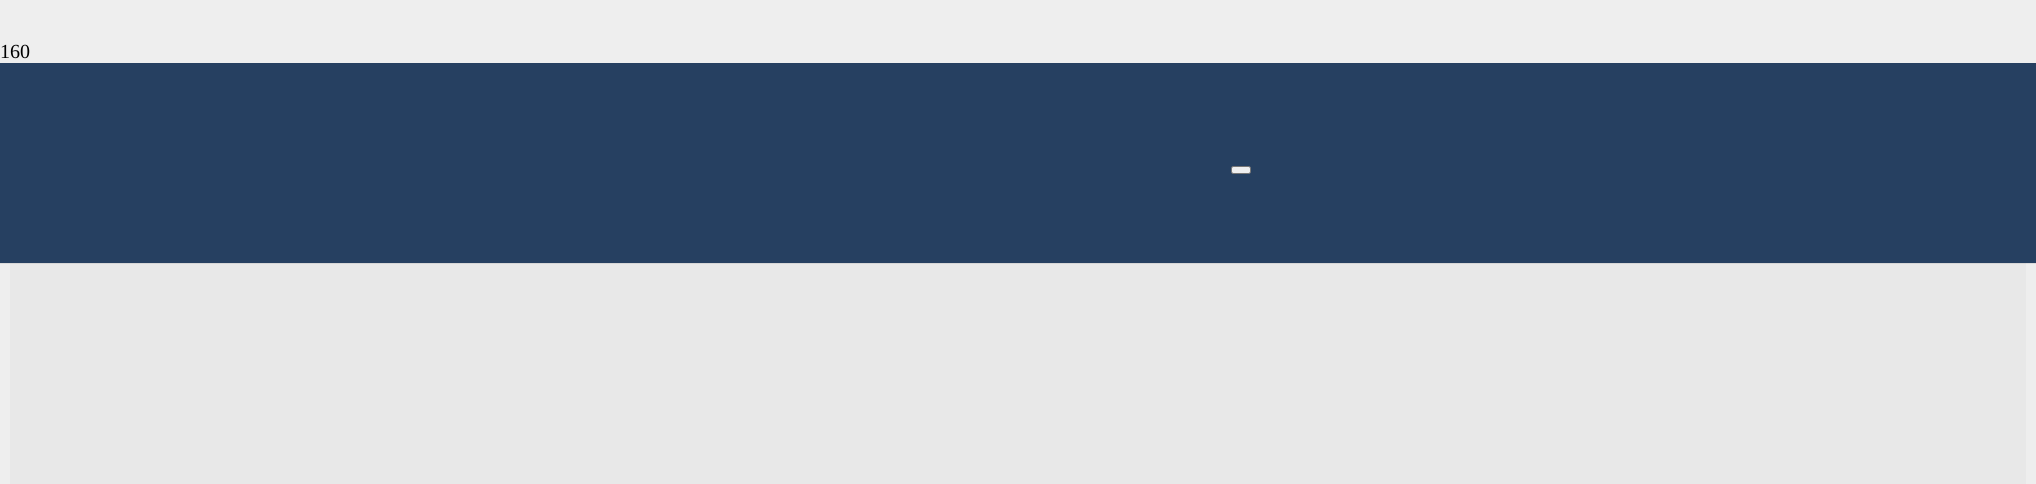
#include <cairo.h>
#include <math.h>
#include <stddef.h>

typedef struct { const char *family; double size; int italic, bold; unsigned color; } style_t;
static cairo_t *ctx;

static void ink(unsigned color) {
    cairo_set_source_rgb(ctx, (color >> 16) / 255.0, (color >> 8 & 255) / 255.0, (color & 255) / 255.0);
}

static void write(double x, double y, const char *s, const style_t *st) {
    cairo_select_font_face(ctx, st->family, st->italic ? CAIRO_FONT_SLANT_ITALIC : CAIRO_FONT_SLANT_NORMAL,
        st->bold ? CAIRO_FONT_WEIGHT_BOLD : CAIRO_FONT_WEIGHT_NORMAL);
    cairo_set_font_size(ctx, st->size);
    ink(st->color);
    cairo_move_to(ctx, x, y);
    cairo_show_text(ctx, s);
}

static void block(double x, double y, double w, double h, unsigned color) {
    ink(color);
    cairo_rectangle(ctx, x, y, w, h);
    cairo_fill(ctx);
}

static void round_path(double x, double y, double w, double h, double r) {
    cairo_new_sub_path(ctx);
    cairo_arc(ctx, x + w - r, y + h - r, r, 0, M_PI / 2);
    cairo_arc(ctx, x + r, y + h - r, r, M_PI / 2, M_PI);
    cairo_arc(ctx, x + r, y + r, r, M_PI, 1.5 * M_PI);
    cairo_arc(ctx, x + w - r, y + r, r, 1.5 * M_PI, 2 * M_PI);
    cairo_close_path(ctx);
}

static const style_t s1 = {"Liberation Serif", 20, 0, 0, 0x000000};

int main(void) {
    cairo_surface_t *surface = cairo_image_surface_create(CAIRO_FORMAT_RGB24, 2036, 484);
    ctx = cairo_create(surface);
    cairo_font_options_t *options = cairo_font_options_create();
    cairo_font_options_set_hint_metrics(options, CAIRO_HINT_METRICS_OFF);
    cairo_font_options_set_hint_style(options, CAIRO_HINT_STYLE_NONE);
    cairo_set_font_options(ctx, options);
    cairo_set_miter_limit(ctx, 4);
    ink(0xeeeeee);
    cairo_paint(ctx);
    write(0, 58, "160", &s1);
    block(10, 263, 2016, 221, 0xe8e8e8);
    cairo_set_source_rgba(ctx, 0, 0, 0, 0.08);
    cairo_rectangle(ctx, 0, 263, 2036, 1);
    cairo_fill(ctx);
    block(0, 63, 2036, 200, 0x264061);
    ink(0xefefef);
    round_path(1231.5, 166.5, 19, 7, 2);
    cairo_fill_preserve(ctx);
    ink(0x767676);
    cairo_set_line_width(ctx, 1);
    cairo_stroke(ctx);
    cairo_surface_write_to_png(surface, "screenshot.png");
    cairo_font_options_destroy(options);
    cairo_destroy(ctx);
    cairo_surface_destroy(surface);
    return 0;
}
